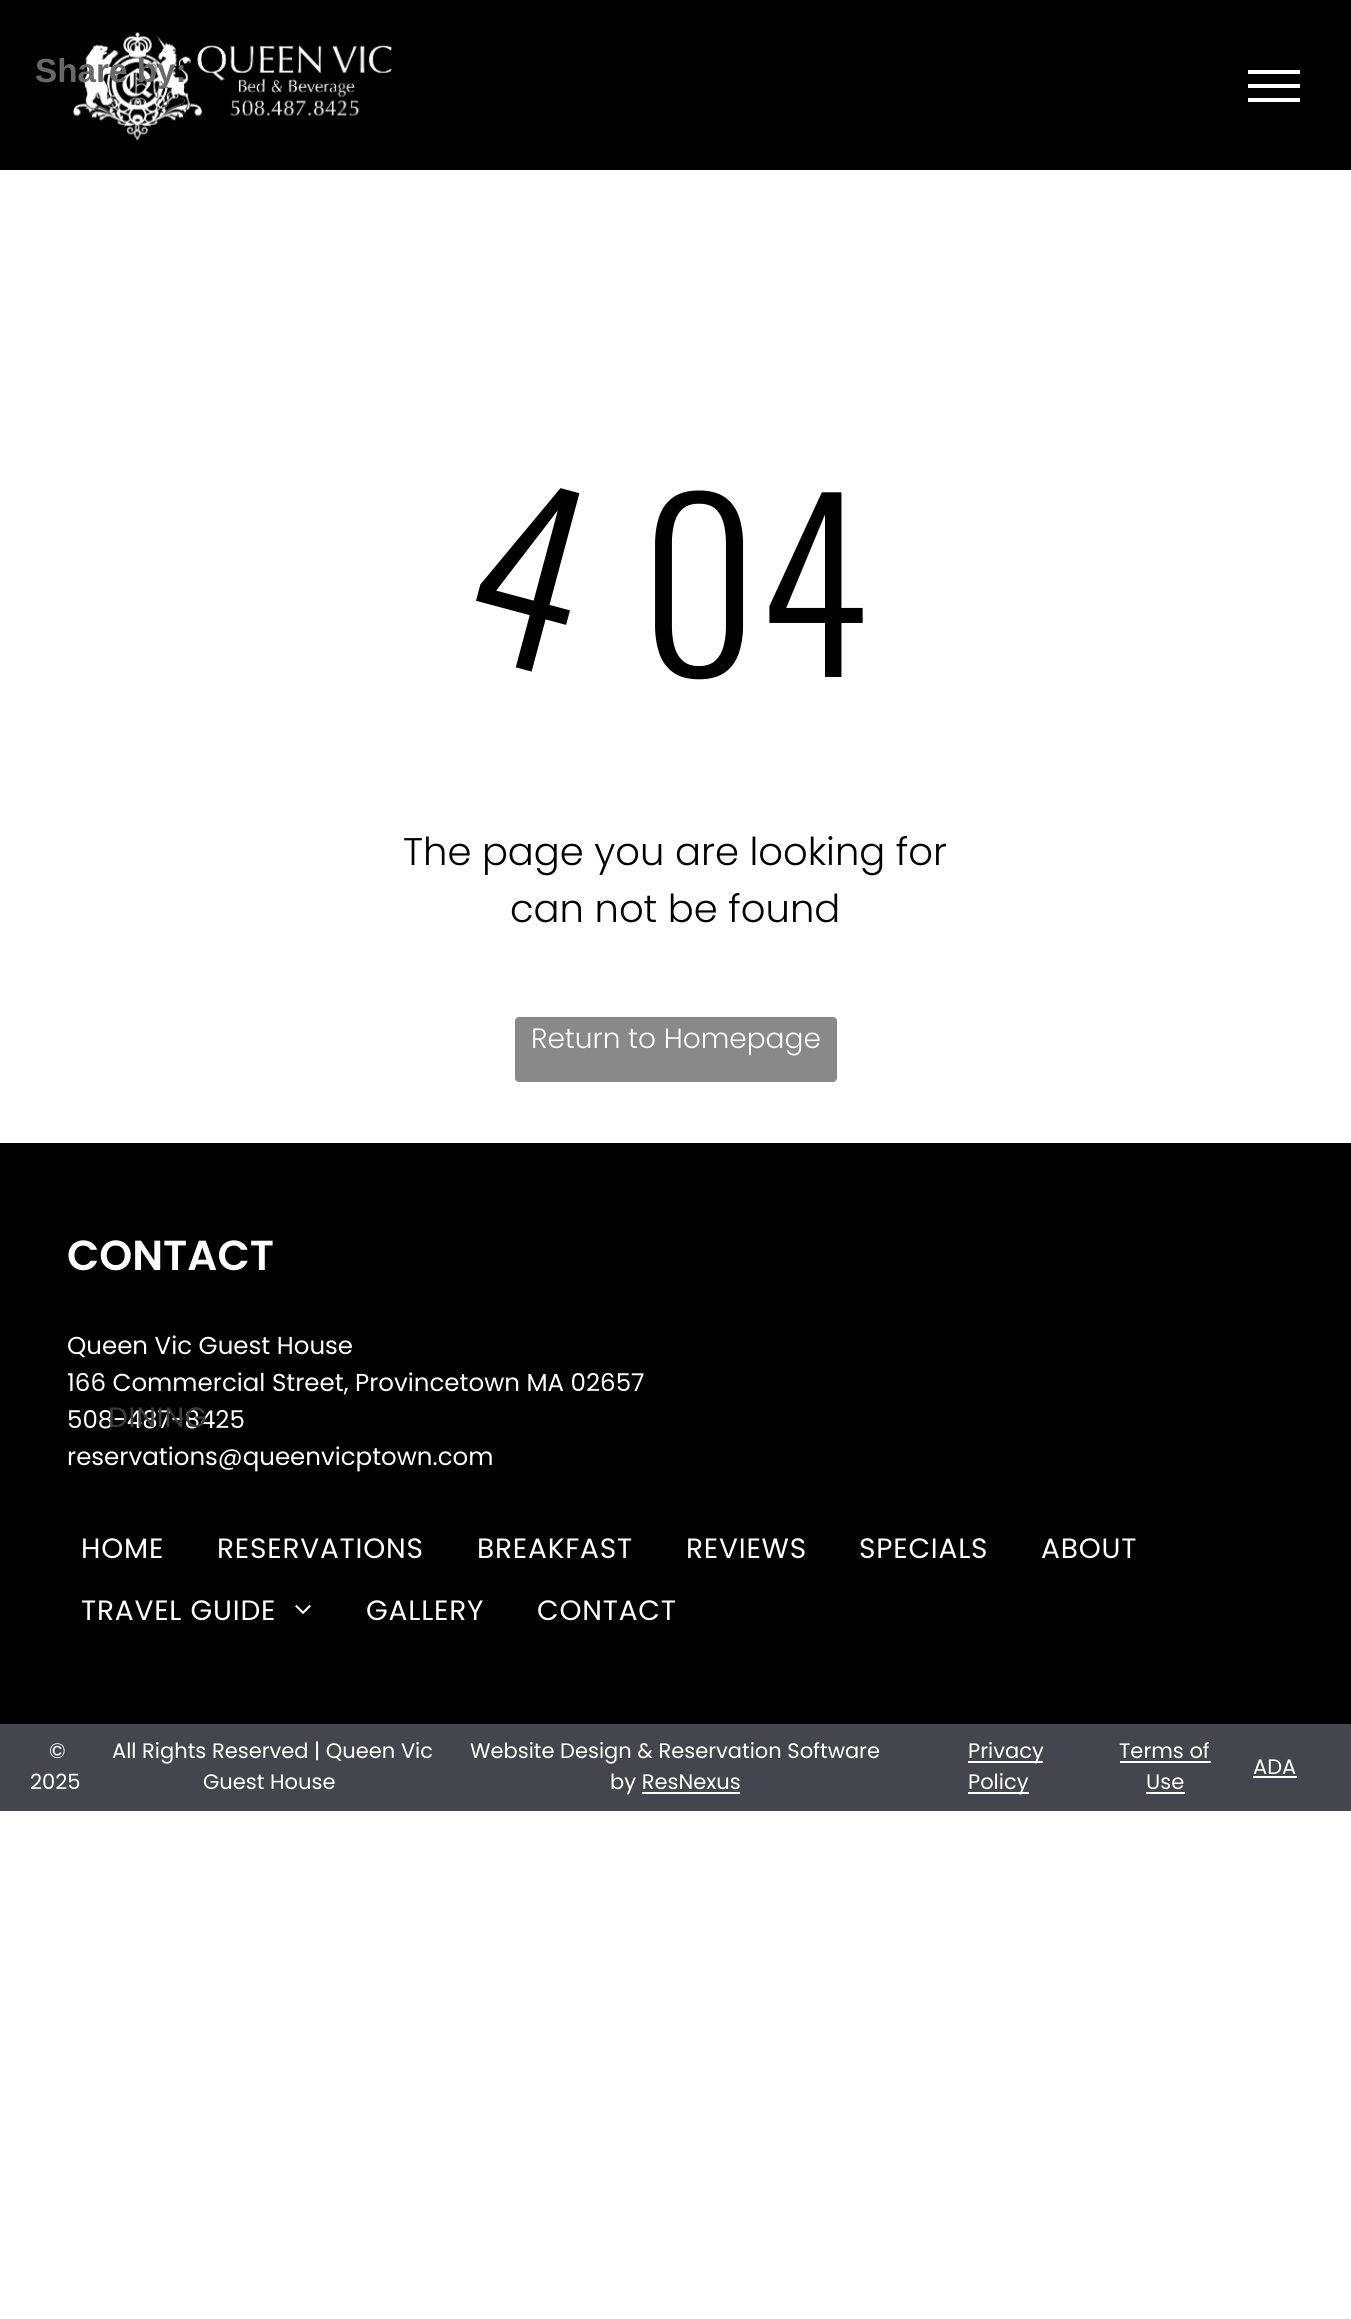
#include <cairo.h>
#include <math.h>
#include <stddef.h>

typedef struct { const char *family; double size; int italic, bold; unsigned color; } style_t;
static cairo_t *ctx;

static void ink(unsigned color) {
    cairo_set_source_rgb(ctx, (color >> 16) / 255.0, (color >> 8 & 255) / 255.0, (color & 255) / 255.0);
}

static void write(double x, double y, const char *s, const style_t *st) {
    cairo_select_font_face(ctx, st->family, st->italic ? CAIRO_FONT_SLANT_ITALIC : CAIRO_FONT_SLANT_NORMAL,
        st->bold ? CAIRO_FONT_WEIGHT_BOLD : CAIRO_FONT_WEIGHT_NORMAL);
    cairo_set_font_size(ctx, st->size);
    ink(st->color);
    cairo_move_to(ctx, x, y);
    cairo_show_text(ctx, s);
}

static void write_spaced(double x, double y, const char *s, double letter, double word) {
    cairo_move_to(ctx, x, y);
    while (*s) {
        char ch[5] = {0};
        int n = 0;
        do ch[n++] = *s++; while ((*s & 0xC0) == 0x80);
        cairo_show_text(ctx, ch);
        cairo_rel_move_to(ctx, letter + word * (*ch == ' '), 0);
    }
}

static void block(double x, double y, double w, double h, unsigned color) {
    ink(color);
    cairo_rectangle(ctx, x, y, w, h);
    cairo_fill(ctx);
}

static void round_path(double x, double y, double w, double h, double r) {
    cairo_new_sub_path(ctx);
    cairo_arc(ctx, x + w - r, y + h - r, r, 0, M_PI / 2);
    cairo_arc(ctx, x + r, y + h - r, r, M_PI / 2, M_PI);
    cairo_arc(ctx, x + r, y + r, r, M_PI, 1.5 * M_PI);
    cairo_arc(ctx, x + w - r, y + r, r, 1.5 * M_PI, 2 * M_PI);
    cairo_close_path(ctx);
}

static void paste(const char *path, double x, double y, double w, double h) {
    cairo_surface_t *image = cairo_image_surface_create_from_png(path);
    cairo_save(ctx);
    cairo_set_source_surface(ctx, image, x, y);
    cairo_rectangle(ctx, x, y, w, h);
    cairo_fill(ctx);
    cairo_restore(ctx);
    cairo_surface_destroy(image);
}

static const style_t s1 = {"Liberation Sans", 33.25, 0, 1, 0x686868};
static const style_t s2 = {"Oswald Light", 228, 0, 0, 0x000000};
static const style_t s3 = {"Poppins Light", 38.5, 0, 0, 0x000000};
static const style_t s4 = {"Poppins Light", 28, 0, 0, 0xffffff};
static const style_t s5 = {"Poppins SemiBold", 42, 0, 0, 0xffffff};
static const style_t s6 = {"Poppins", 24.5, 0, 0, 0xffffff};
static const style_t s7 = {"Poppins", 21, 0, 0, 0xffffff};

int main(void) {
    cairo_surface_t *surface = cairo_image_surface_create(CAIRO_FORMAT_RGB24, 1351, 2319);
    ctx = cairo_create(surface);
    cairo_font_options_t *options = cairo_font_options_create();
    cairo_font_options_set_hint_metrics(options, CAIRO_HINT_METRICS_OFF);
    cairo_font_options_set_hint_style(options, CAIRO_HINT_STYLE_NONE);
    cairo_set_font_options(ctx, options);
    cairo_set_miter_limit(ctx, 4);
    ink(0xffffff);
    cairo_paint(ctx);
    block(0, 0, 1351, 170, 0x000000);
    paste("pic1.png", 72, 32, 320, 109);
    write(35, 82, "Share by:", &s1);
    block(1248, 70, 52, 4, 0xffffff);
    block(1248, 84, 52, 4, 0xffffff);
    block(1248, 98, 52, 4, 0xffffff);
    cairo_save(ctx);
    cairo_translate(ctx, 451, 650);
    cairo_rotate(ctx, 15 * M_PI / 180);
    write(0, 0, "4", &s2);
    cairo_restore(ctx);
    write(640, 677, "04", &s2);
    write(403, 865, "The page you are looking for", &s3);
    write(510, 922, "can not be found", &s3);
    ink(0x898989);
    round_path(515, 1017, 322, 65, 4);
    cairo_fill(ctx);
    write(531, 1048, "Return to Homepage", &s4);
    block(0, 1724, 1351, 87, 0x43474d);
    block(0, 1143, 1351, 581, 0x000000);
    write(67, 1270, "CONTACT", &s5);
    write(67, 1354, "Queen Vic Guest House", &s6);
    write(67, 1391, "166 Commercial Street, Provincetown MA 02657", &s6);
    write(67, 1428, "508-487-8425", &s6);
    write(67, 1465, "reservations@queenvicptown.com", &s6);
    cairo_set_font_size(ctx, 28);
    ink(0x3e3e3e);
    write_spaced(108, 1427, "DINING", 0.8, 0);
    ink(0xffffff);
    write_spaced(81, 1620, "TRAVEL GUIDE", 0.8, 0);
    paste("pic2.png", 295, 1605, 16, 9);
    write_spaced(81, 1558, "HOME", 0.8, 0);
    write_spaced(217, 1558, "RESERVATIONS", 0.8, 0);
    write_spaced(477, 1558, "BREAKFAST", 0.8, 0);
    write_spaced(686, 1558, "REVIEWS", 0.8, 0);
    write_spaced(859, 1558, "SPECIALS", 0.8, 0);
    write_spaced(1041, 1558, "ABOUT", 0.8, 0);
    write_spaced(366, 1620, "GALLERY", 0.8, 0);
    write_spaced(537, 1620, "CONTACT", 0.8, 0);
    write(49, 1758, "©", &s7);
    write(30, 1789, "2025", &s7);
    write(112, 1758, "All Rights Reserved | Queen Vic", &s7);
    write(203, 1789, "Guest House", &s7);
    write(470, 1758, "Website Design & Reservation Software", &s7);
    write(610, 1789, "by ResNexus", &s7);
    block(642, 1792, 98, 2, 0xffffff);
    block(968, 1761, 75, 2, 0xffffff);
    write(968, 1758, "Privacy", &s7);
    block(968, 1792, 61, 2, 0xffffff);
    write(968, 1789, "Policy", &s7);
    write(1119, 1758, "Terms of", &s7);
    block(1120, 1761, 91, 2, 0xffffff);
    write(1146, 1789, "Use", &s7);
    block(1146, 1792, 39, 2, 0xffffff);
    write(1253, 1774, "ADA", &s7);
    block(1253, 1776, 44, 2, 0xffffff);
    cairo_surface_write_to_png(surface, "screenshot.png");
    cairo_font_options_destroy(options);
    cairo_destroy(ctx);
    cairo_surface_destroy(surface);
    return 0;
}
